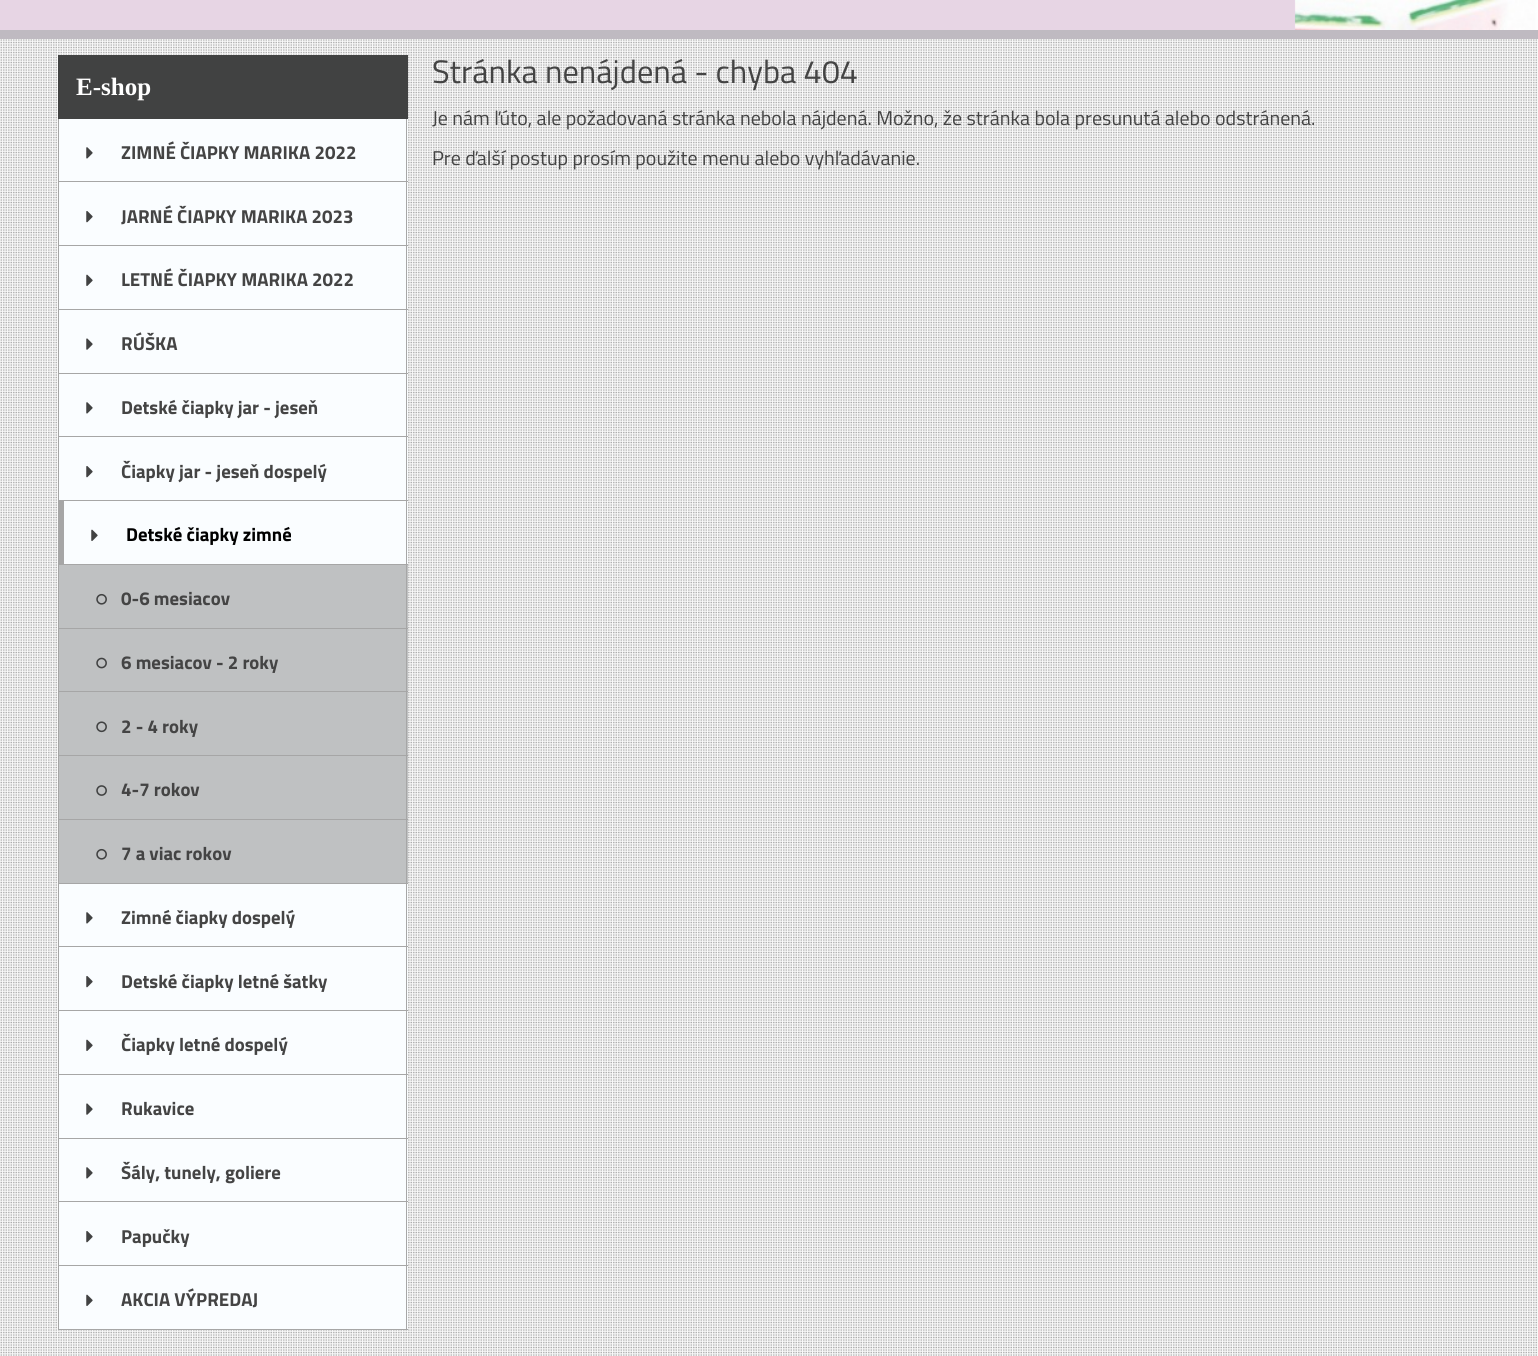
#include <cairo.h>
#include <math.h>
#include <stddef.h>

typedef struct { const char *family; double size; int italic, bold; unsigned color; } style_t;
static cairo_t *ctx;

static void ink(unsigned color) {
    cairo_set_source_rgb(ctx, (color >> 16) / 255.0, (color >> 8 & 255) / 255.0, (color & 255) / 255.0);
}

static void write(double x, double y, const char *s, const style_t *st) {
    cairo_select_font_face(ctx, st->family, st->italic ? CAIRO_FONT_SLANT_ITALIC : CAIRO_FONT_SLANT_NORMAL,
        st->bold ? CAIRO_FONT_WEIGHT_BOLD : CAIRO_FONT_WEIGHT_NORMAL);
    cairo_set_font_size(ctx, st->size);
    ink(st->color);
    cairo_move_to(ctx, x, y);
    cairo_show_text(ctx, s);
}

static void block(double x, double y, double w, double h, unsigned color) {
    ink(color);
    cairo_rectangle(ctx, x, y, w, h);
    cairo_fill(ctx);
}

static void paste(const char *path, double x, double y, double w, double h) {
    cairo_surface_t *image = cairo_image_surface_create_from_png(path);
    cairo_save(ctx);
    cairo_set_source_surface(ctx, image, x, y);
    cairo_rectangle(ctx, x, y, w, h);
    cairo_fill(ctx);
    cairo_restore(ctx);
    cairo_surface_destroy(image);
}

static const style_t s1 = {"Liberation Serif", 25, 0, 1, 0xffffff};
static const style_t s2 = {"Titillium Web", 18.75, 0, 1, 0x444444};
static const style_t s3 = {"Titillium Web", 18.75, 0, 1, 0x000000};
static const style_t s4 = {"Titillium Web", 32.5, 0, 0, 0x444444};
static const style_t s5 = {"Titillium Web", 20, 0, 0, 0x444444};

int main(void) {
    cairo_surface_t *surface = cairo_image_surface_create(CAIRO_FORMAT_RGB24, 1538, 1356);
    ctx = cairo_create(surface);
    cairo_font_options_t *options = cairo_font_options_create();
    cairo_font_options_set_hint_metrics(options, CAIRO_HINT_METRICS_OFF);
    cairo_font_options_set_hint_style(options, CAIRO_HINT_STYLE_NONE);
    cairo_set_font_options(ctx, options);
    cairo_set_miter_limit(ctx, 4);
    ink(0xfafafa);
    cairo_paint(ctx);
    ink(0xbfbac1);
    cairo_new_path(ctx);
    cairo_move_to(ctx, 0, 30);
    cairo_line_to(ctx, 0, 39);
    cairo_line_to(ctx, 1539, 39);
    cairo_line_to(ctx, 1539, -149);
    cairo_line_to(ctx, 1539, 30);
    cairo_close_path(ctx);
    cairo_fill(ctx);
    block(0, 0, 1296, 30, 0xe7d5e4);
    paste("pic1.png", 1294, 0, 244, 30);
    paste("pic2.png", 0, 39, 1537, 1317);
    block(58, 55, 350, 64, 0x414242);
    write(76, 95, "E-shop", &s1);
    block(59, 119, 349, 126, 0xfafdff);
    block(406, 119, 1, 127, 0xa6a6a6);
    block(58, 181, 350, 1, 0xa6a6a6);
    block(58, 119, 1, 64, 0xa6a6a6);
    paste("pic3.png", 86, 147, 7, 12);
    write(121, 159, "ZIMNÉ ČIAPKY MARIKA 2022", &s2);
    block(58, 245, 350, 1, 0xa6a6a6);
    block(58, 183, 1, 63, 0xa6a6a6);
    paste("pic4.png", 86, 211, 7, 12);
    write(121, 223, "JARNÉ ČIAPKY MARIKA 2023", &s2);
    block(59, 246, 349, 63, 0xfafdff);
    block(406, 246, 1, 64, 0xa6a6a6);
    block(58, 309, 350, 1, 0xa6a6a6);
    block(58, 246, 1, 64, 0xa6a6a6);
    paste("pic5.png", 86, 274, 7, 12);
    write(121, 286, "LETNÉ ČIAPKY MARIKA 2022", &s2);
    block(59, 310, 349, 63, 0xfafdff);
    block(406, 310, 1, 64, 0xa6a6a6);
    block(58, 373, 350, 1, 0xa6a6a6);
    block(58, 310, 1, 64, 0xa6a6a6);
    paste("pic6.png", 86, 338, 7, 12);
    write(121, 350, "RÚŠKA", &s2);
    block(59, 374, 349, 126, 0xfafdff);
    block(406, 374, 1, 127, 0xa6a6a6);
    block(58, 436, 350, 1, 0xa6a6a6);
    block(58, 374, 1, 64, 0xa6a6a6);
    paste("pic3.png", 86, 402, 7, 12);
    write(121, 414, "Detské čiapky jar - jeseň", &s2);
    block(58, 500, 350, 1, 0xa6a6a6);
    block(58, 438, 1, 63, 0xa6a6a6);
    paste("pic4.png", 86, 466, 7, 12);
    write(121, 478, "Čiapky jar - jeseň dospelý", &s2);
    block(64, 501, 344, 63, 0xfafdff);
    block(406, 501, 1, 64, 0xa6a6a6);
    block(58, 564, 350, 1, 0xa6a6a6);
    block(58, 501, 6, 64, 0xa6a6a6);
    paste("pic5.png", 91, 529, 7, 12);
    write(126, 541, "Detské čiapky zimné", &s3);
    block(59, 565, 349, 63, 0xbfc1c2);
    block(406, 565, 1, 64, 0xa6a6a6);
    block(58, 628, 350, 1, 0xa6a6a6);
    block(58, 565, 1, 64, 0xa6a6a6);
    paste("pic7.png", 96, 593, 11, 12);
    write(121, 605, "0-6 mesiacov", &s2);
    block(59, 629, 349, 126, 0xbfc1c2);
    block(406, 629, 1, 127, 0xa6a6a6);
    block(58, 691, 350, 1, 0xa6a6a6);
    block(58, 629, 1, 64, 0xa6a6a6);
    paste("pic8.png", 96, 657, 11, 12);
    write(121, 669, "6 mesiacov - 2 roky", &s2);
    block(58, 755, 350, 1, 0xa6a6a6);
    block(58, 693, 1, 63, 0xa6a6a6);
    paste("pic9.png", 96, 721, 11, 12);
    write(121, 733, "2 - 4 roky", &s2);
    block(59, 756, 349, 63, 0xbfc1c2);
    block(406, 756, 1, 64, 0xa6a6a6);
    block(58, 819, 350, 1, 0xa6a6a6);
    block(58, 756, 1, 64, 0xa6a6a6);
    paste("pic10.png", 96, 785, 11, 11);
    write(121, 796, "4-7 rokov", &s2);
    block(59, 820, 349, 63, 0xbfc1c2);
    block(406, 820, 1, 64, 0xa6a6a6);
    block(58, 883, 350, 1, 0xa6a6a6);
    block(58, 820, 1, 64, 0xa6a6a6);
    paste("pic7.png", 96, 848, 11, 12);
    write(121, 860, "7 a viac rokov", &s2);
    block(59, 884, 349, 126, 0xfafdff);
    block(406, 884, 1, 127, 0xa6a6a6);
    block(58, 946, 350, 1, 0xa6a6a6);
    block(58, 884, 1, 64, 0xa6a6a6);
    paste("pic3.png", 86, 912, 7, 12);
    write(121, 924, "Zimné čiapky dospelý", &s2);
    block(58, 1010, 350, 1, 0xa6a6a6);
    block(58, 948, 1, 63, 0xa6a6a6);
    paste("pic4.png", 86, 976, 7, 12);
    write(121, 988, "Detské čiapky letné šatky", &s2);
    block(59, 1011, 349, 63, 0xfafdff);
    block(406, 1011, 1, 64, 0xa6a6a6);
    block(58, 1074, 350, 1, 0xa6a6a6);
    block(58, 1011, 1, 64, 0xa6a6a6);
    paste("pic5.png", 86, 1039, 7, 12);
    write(121, 1051, "Čiapky letné dospelý", &s2);
    block(59, 1075, 349, 63, 0xfafdff);
    block(406, 1075, 1, 64, 0xa6a6a6);
    block(58, 1138, 350, 1, 0xa6a6a6);
    block(58, 1075, 1, 64, 0xa6a6a6);
    paste("pic6.png", 86, 1103, 7, 12);
    write(121, 1115, "Rukavice", &s2);
    block(59, 1139, 349, 126, 0xfafdff);
    block(406, 1139, 1, 127, 0xa6a6a6);
    block(58, 1201, 350, 1, 0xa6a6a6);
    block(58, 1139, 1, 64, 0xa6a6a6);
    paste("pic3.png", 86, 1167, 7, 12);
    write(121, 1179, "Šály, tunely, goliere", &s2);
    block(58, 1265, 350, 1, 0xa6a6a6);
    block(58, 1203, 1, 63, 0xa6a6a6);
    paste("pic4.png", 86, 1231, 7, 12);
    write(121, 1243, "Papučky", &s2);
    block(59, 1266, 349, 63, 0xfafdff);
    block(406, 1266, 1, 64, 0xa6a6a6);
    block(58, 1329, 350, 1, 0xa6a6a6);
    block(58, 1266, 1, 64, 0xa6a6a6);
    paste("pic5.png", 86, 1294, 7, 12);
    write(121, 1306, "AKCIA VÝPREDAJ", &s2);
    write(432, 83, "Stránka nenájdená - chyba 404", &s4);
    write(432, 125, "Je nám ľúto, ale požadovaná stránka nebola nájdená. Možno, že stránka bola presunutá alebo odstránená.", &s5);
    write(432, 165, "Pre ďalší postup prosím použite menu alebo vyhľadávanie.", &s5);
    cairo_surface_write_to_png(surface, "screenshot.png");
    cairo_font_options_destroy(options);
    cairo_destroy(ctx);
    cairo_surface_destroy(surface);
    return 0;
}
